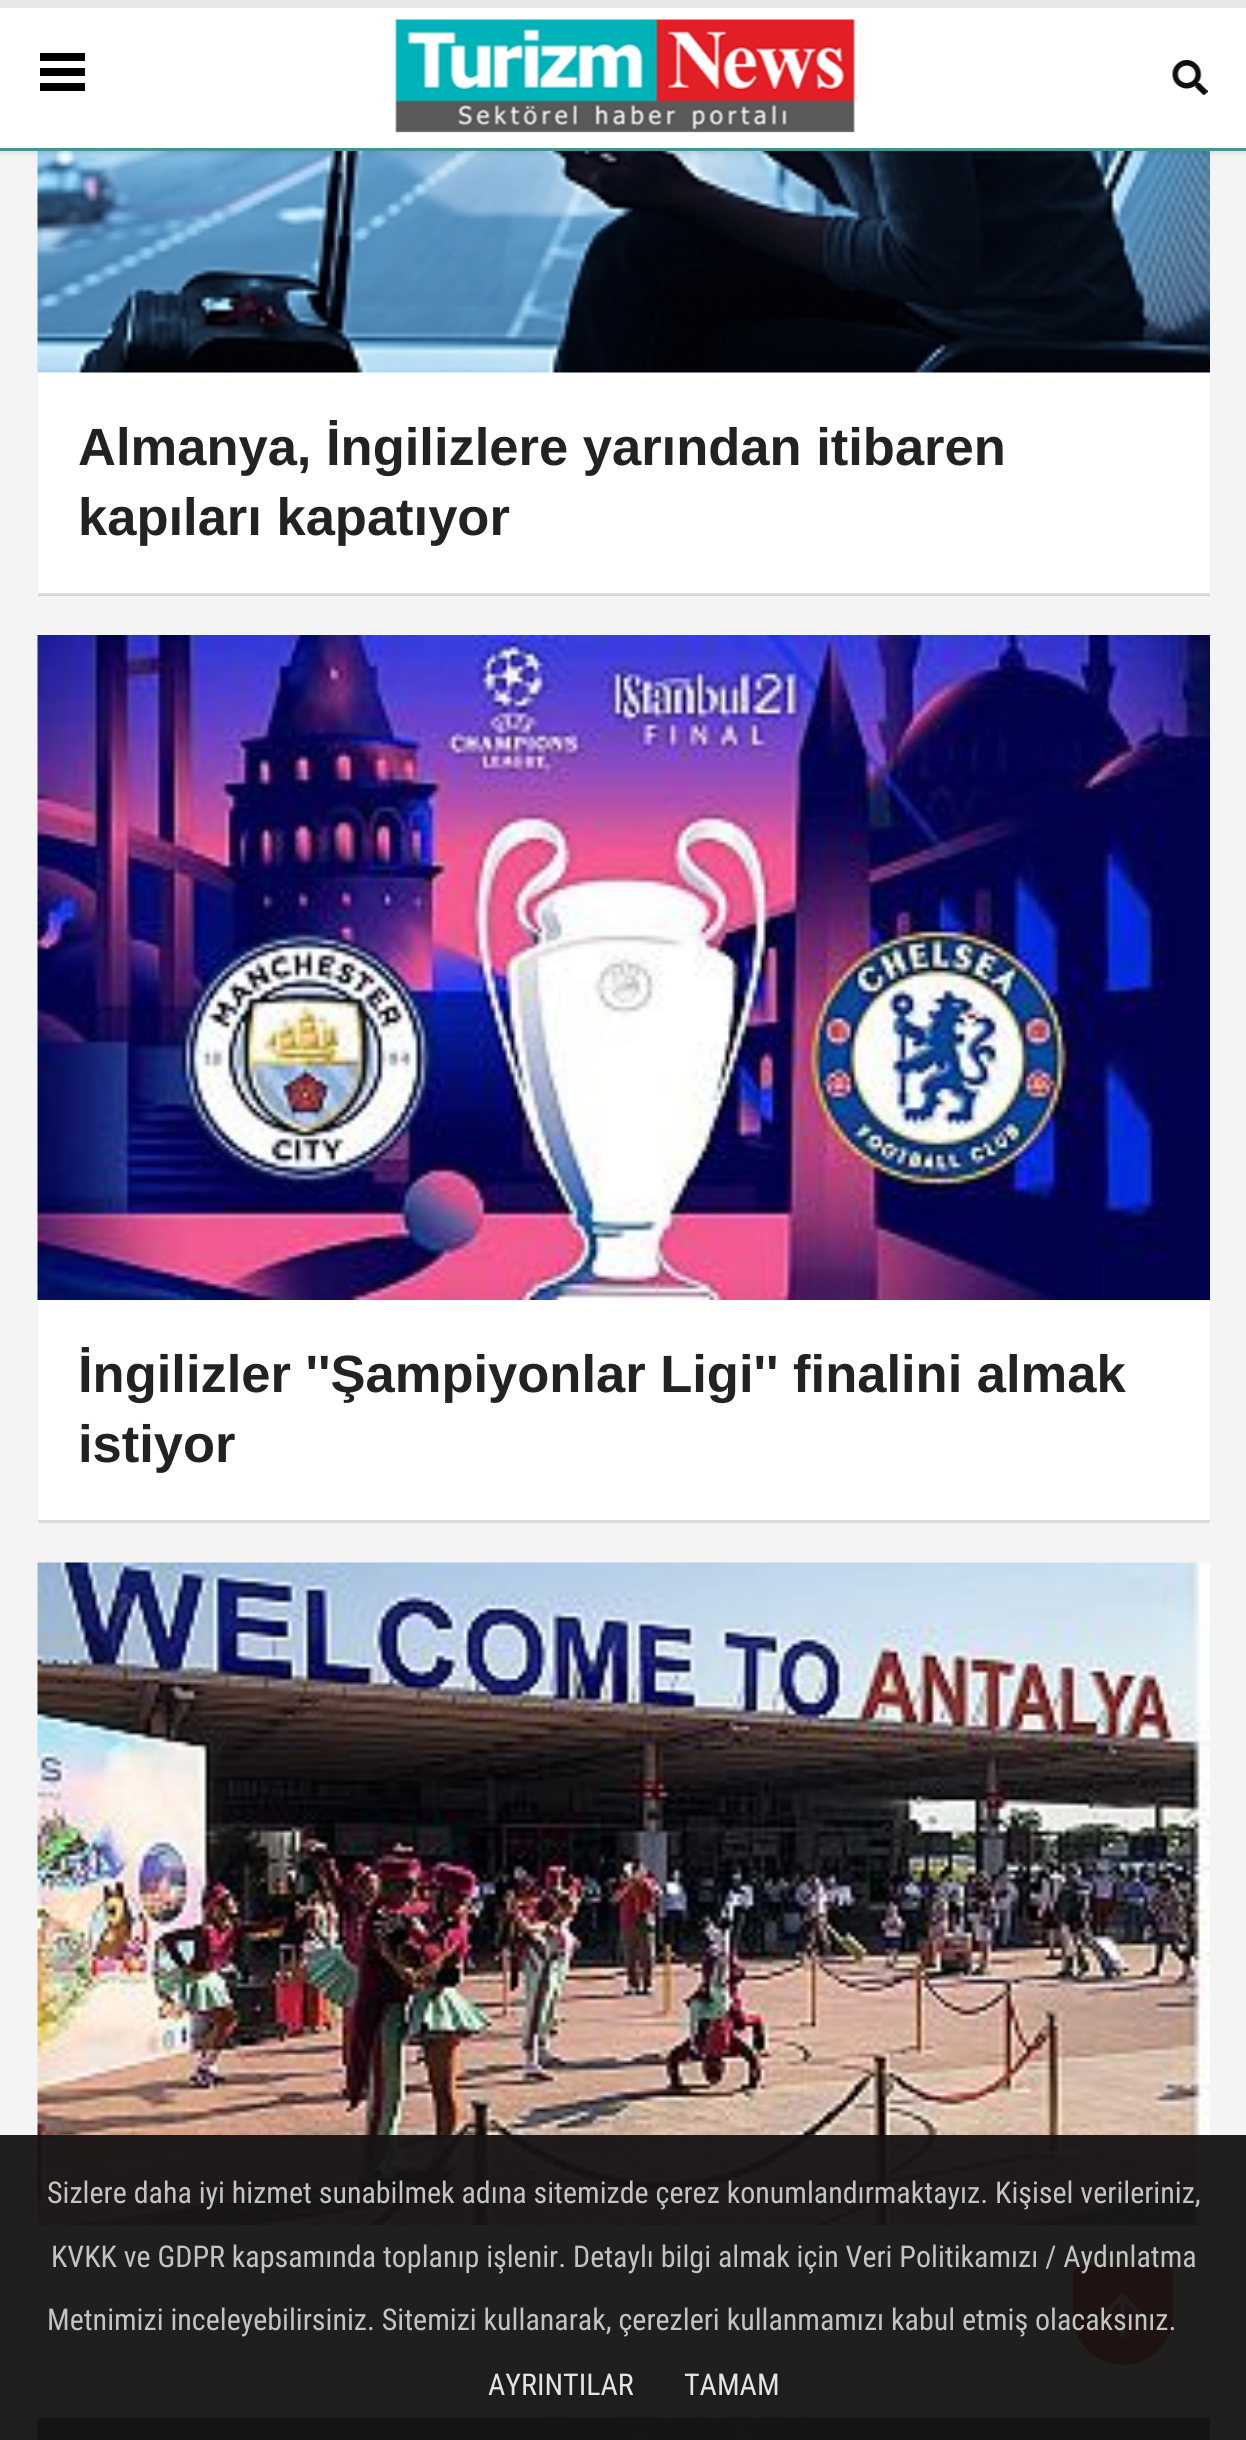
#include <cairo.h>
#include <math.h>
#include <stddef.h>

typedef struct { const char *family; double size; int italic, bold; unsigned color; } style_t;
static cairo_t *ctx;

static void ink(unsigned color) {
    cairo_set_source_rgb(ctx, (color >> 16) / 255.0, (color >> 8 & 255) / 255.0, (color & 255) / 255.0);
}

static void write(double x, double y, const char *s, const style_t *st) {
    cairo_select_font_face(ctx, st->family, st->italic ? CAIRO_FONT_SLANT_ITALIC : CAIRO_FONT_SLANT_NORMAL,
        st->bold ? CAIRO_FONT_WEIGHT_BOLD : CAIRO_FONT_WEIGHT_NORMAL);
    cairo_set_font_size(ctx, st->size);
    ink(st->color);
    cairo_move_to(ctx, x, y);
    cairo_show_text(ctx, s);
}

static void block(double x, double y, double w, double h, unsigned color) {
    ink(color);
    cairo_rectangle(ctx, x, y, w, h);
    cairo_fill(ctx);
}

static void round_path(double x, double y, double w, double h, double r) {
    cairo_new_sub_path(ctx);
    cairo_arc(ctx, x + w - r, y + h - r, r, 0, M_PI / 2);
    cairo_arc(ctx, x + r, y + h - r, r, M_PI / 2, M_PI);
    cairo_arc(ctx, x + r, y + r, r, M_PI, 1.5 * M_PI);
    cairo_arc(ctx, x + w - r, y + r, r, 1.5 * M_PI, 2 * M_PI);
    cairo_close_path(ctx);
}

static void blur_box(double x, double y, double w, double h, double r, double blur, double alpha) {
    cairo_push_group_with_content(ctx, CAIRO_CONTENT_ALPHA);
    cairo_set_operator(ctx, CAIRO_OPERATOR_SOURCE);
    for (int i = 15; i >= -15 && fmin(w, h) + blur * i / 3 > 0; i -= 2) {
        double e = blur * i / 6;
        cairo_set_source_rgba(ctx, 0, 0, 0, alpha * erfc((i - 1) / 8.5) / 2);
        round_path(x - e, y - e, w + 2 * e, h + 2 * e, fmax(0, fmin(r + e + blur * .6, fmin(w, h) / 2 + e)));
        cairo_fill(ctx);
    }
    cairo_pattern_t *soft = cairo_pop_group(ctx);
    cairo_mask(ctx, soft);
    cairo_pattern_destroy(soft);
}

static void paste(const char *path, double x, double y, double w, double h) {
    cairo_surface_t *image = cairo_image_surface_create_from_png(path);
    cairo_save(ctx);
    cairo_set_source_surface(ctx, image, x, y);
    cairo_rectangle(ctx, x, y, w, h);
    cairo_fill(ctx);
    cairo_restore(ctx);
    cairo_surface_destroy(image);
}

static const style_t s1 = {"Liberation Sans", 52.5, 0, 1, 0x222222};
static const style_t s2 = {"Roboto Condensed", 30, 0, 0, 0xc3c3c3};
static const style_t s3 = {"Roboto Condensed", 30, 0, 0, 0xe4e4e4};

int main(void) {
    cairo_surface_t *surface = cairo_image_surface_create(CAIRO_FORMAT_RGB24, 1246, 2440);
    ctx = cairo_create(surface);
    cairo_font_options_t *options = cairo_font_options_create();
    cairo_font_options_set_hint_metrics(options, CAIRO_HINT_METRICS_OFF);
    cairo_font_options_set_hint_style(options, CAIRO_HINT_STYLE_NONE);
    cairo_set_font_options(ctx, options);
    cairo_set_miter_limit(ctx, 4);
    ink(0xf4f4f4);
    cairo_paint(ctx);
    block(38, 595, 1172, 1, 0xd3d3d3);
    block(38, 372, 1172, 221, 0xffffff);
    paste("pic3.png", 37, 151, 1173, 222);
    ink(0x000000);
    blur_box(0, 3, 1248, 150, 0, 2.5, 0.1);
    block(0, 8, 1246, 140, 0xffffff);
    block(0, 0, 1246, 8, 0xebe7e6);
    block(0, 148, 1246, 3, 0x42968f);
    block(40, 53, 45, 8, 0x000000);
    block(40, 68, 45, 8, 0x000000);
    block(40, 83, 45, 8, 0x000000);
    paste("pic1.png", 395, 19, 460, 114);
    paste("pic2.png", 1172, 60, 36, 35);
    block(38, 593, 1172, 2, 0xdcdcdc);
    write(78, 465, "Almanya, İngilizlere yarından itibaren", &s1);
    write(78, 535, "kapıları kapatıyor", &s1);
    block(38, 1300, 1172, 220, 0xffffff);
    block(38, 1520, 1172, 3, 0xdcdcdc);
    paste("pic4.png", 37, 635, 1173, 665);
    write(78, 1392, "İngilizler ''Şampiyonlar Ligi'' finalini almak", &s1);
    write(78, 1462, "istiyor", &s1);
    block(38, 2225, 1172, 150, 0xffffff);
    block(38, 2375, 1172, 3, 0xdcdcdc);
    paste("pic5.png", 37, 1562, 1173, 663);
    paste("pic6.png", 37, 2417, 1173, 23);
    ink(0xcc0700);
    cairo_new_path(ctx);
    cairo_move_to(ctx, 1083, 2265);
    cairo_line_to(ctx, 1163, 2265);
    cairo_curve_to(ctx, 1168.5, 2265, 1173, 2269.5, 1173, 2275);
    cairo_line_to(ctx, 1173, 2315);
    cairo_curve_to(ctx, 1173, 2342.5, 1150.5, 2365, 1123, 2365);
    cairo_curve_to(ctx, 1095.5, 2365, 1073, 2342.5, 1073, 2315);
    cairo_line_to(ctx, 1073, 2275);
    cairo_curve_to(ctx, 1073, 2269.5, 1077.5, 2265, 1083, 2265);
    cairo_close_path(ctx);
    cairo_fill(ctx);
    paste("pic7.png", 1100, 2293, 45, 44);
    cairo_set_source_rgba(ctx, 0.09, 0.078, 0.078, 0.95);
    cairo_rectangle(ctx, 0, 2135, 1246, 305);
    cairo_fill(ctx);
    write(47, 2203, "Sizlere daha iyi hizmet sunabilmek adına sitemizde çerez konumlandırmaktayız. Kişisel verileriniz,", &s2);
    write(51, 2267, "KVKK ve GDPR kapsamında toplanıp işlenir. Detaylı bilgi almak için Veri Politikamızı / Aydınlatma", &s2);
    write(47, 2330, "Metnimizi inceleyebilirsiniz. Sitemizi kullanarak, çerezleri kullanmamızı kabul etmiş olacaksınız.", &s2);
    write(488, 2395, "AYRINTILAR", &s3);
    write(684, 2395, "TAMAM", &s3);
    cairo_surface_write_to_png(surface, "screenshot.png");
    cairo_font_options_destroy(options);
    cairo_destroy(ctx);
    cairo_surface_destroy(surface);
    return 0;
}
